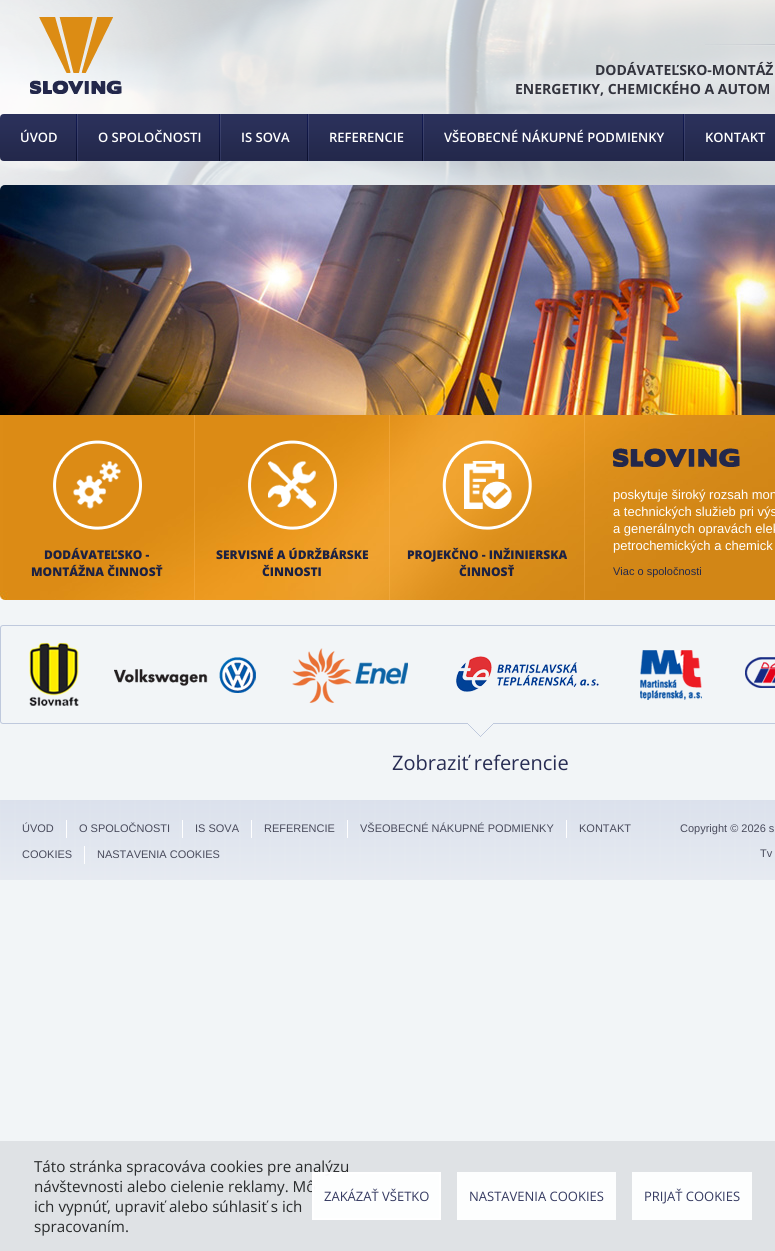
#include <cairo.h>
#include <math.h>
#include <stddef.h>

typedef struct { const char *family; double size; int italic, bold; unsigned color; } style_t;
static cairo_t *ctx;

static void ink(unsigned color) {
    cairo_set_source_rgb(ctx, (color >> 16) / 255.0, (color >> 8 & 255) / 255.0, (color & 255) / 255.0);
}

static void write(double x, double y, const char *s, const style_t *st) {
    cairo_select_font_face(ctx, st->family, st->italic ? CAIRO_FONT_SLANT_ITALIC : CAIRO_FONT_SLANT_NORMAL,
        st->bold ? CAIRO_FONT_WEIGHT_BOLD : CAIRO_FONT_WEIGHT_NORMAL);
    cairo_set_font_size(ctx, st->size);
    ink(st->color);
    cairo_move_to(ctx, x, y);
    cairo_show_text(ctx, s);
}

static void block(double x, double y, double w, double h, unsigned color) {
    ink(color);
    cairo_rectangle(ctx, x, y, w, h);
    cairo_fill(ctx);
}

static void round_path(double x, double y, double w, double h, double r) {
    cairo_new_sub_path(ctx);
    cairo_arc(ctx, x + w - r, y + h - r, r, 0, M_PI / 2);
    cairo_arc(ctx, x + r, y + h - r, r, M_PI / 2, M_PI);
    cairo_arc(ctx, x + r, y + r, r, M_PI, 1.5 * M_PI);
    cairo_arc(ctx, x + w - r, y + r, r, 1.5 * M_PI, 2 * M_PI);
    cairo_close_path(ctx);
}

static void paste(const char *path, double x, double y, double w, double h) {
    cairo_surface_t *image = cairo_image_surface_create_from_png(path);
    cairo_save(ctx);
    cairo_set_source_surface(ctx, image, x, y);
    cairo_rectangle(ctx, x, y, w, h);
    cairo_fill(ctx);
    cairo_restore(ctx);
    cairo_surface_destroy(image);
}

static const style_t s1 = {"Open Sans", 14, 0, 1, 0x33343e};
static const style_t s2 = {"Open Sans SemiBold", 13, 0, 0, 0xffffff};
static const style_t s3 = {"Open Sans ExtraBold", 12, 0, 0, 0x1c2142};
static const style_t s4 = {"Liberation Sans", 13, 0, 0, 0xffffff};
static const style_t s5 = {"Liberation Sans", 11, 0, 0, 0x23284b};
static const style_t s6 = {"Open Sans", 20, 0, 0, 0x272c53};
static const style_t s7 = {"Liberation Sans", 11, 0, 0, 0x494b5c};
static const style_t s8 = {"Open Sans", 15.2, 0, 0, 0x292b2c};
static const style_t s9 = {"Open Sans", 13, 0, 0, 0x353a61};

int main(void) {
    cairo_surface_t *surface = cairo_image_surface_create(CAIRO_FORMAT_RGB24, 775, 1251);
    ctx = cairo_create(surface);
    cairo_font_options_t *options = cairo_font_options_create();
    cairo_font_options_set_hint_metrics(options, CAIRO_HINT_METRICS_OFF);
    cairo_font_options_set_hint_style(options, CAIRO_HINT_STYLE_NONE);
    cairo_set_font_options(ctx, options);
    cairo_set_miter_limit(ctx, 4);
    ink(0xf2f5f7);
    cairo_paint(ctx);
    paste("pic1.png", 0, 0, 775, 190);
    paste("pic2.png", 30, 17, 92, 77);
    paste("pic3.png", 705, 44, 70, 2);
    write(595, 75, "DODÁVATEĽSKO-MONTÁŽ", &s1);
    write(515, 94, "ENERGETIKY, CHEMICKÉHO A AUTOM", &s1);
    paste("pic4.png", 0, 114, 775, 47);
    paste("pic5.png", 76, 114, 2, 47);
    write(20, 142, "ÚVOD", &s2);
    paste("pic5.png", 219, 114, 2, 47);
    write(98, 142, "O SPOLOČNOSTI", &s2);
    paste("pic5.png", 307, 114, 2, 47);
    write(241, 142, "IS SOVA", &s2);
    paste("pic5.png", 422, 114, 2, 47);
    write(329, 142, "REFERENCIE", &s2);
    paste("pic5.png", 683, 114, 2, 47);
    write(444, 142, "VŠEOBECNÉ NÁKUPNÉ PODMIENKY", &s2);
    write(705, 142, "KONTAKT", &s2);
    paste("pic6.png", 0, 185, 775, 230);
    paste("pic7.png", 0, 415, 775, 185);
    paste("pic8.png", 53, 440, 89, 90);
    write(44, 559, "DODÁVATEĽSKO -", &s3);
    write(31, 576, "MONTÁŽNA ČINNOSŤ", &s3);
    cairo_set_source_rgba(ctx, 1, 0.737, 0.349, 0.36);
    cairo_rectangle(ctx, 194, 415, 1, 185);
    cairo_fill(ctx);
    paste("pic9.png", 248, 440, 89, 90);
    write(216, 559, "SERVISNÉ A ÚDRŽBÁRSKE", &s3);
    write(262, 576, "ČINNOSTI", &s3);
    cairo_set_source_rgba(ctx, 1, 0.737, 0.349, 0.36);
    cairo_rectangle(ctx, 389, 415, 1, 185);
    cairo_fill(ctx);
    paste("pic10.png", 442, 440, 90, 90);
    write(407, 559, "PROJEKČNO - INŽINIERSKA", &s3);
    write(459, 576, "ČINNOSŤ", &s3);
    cairo_set_source_rgba(ctx, 1, 0.737, 0.349, 0.36);
    cairo_rectangle(ctx, 584, 415, 1, 185);
    cairo_fill(ctx);
    paste("pic11.png", 613, 448, 127, 19);
    write(613, 499, "poskytuje široký rozsah mon", &s4);
    write(613, 516, "a technických služieb pri výs", &s4);
    write(613, 533, "a generálnych opravách elek", &s4);
    write(613, 550, "petrochemických a chemick", &s4);
    write(613, 575, "Viac o spoločnosti", &s5);
    round_path(0.5, 625.5, 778, 98, 2.5);
    ink(0xbfc9dd);
    cairo_set_line_width(ctx, 1);
    cairo_stroke(ctx);
    paste("pic12.png", 29, 643, 746, 63);
    paste("pic13.png", 468, 723, 25, 14);
    write(392, 770, "Zobraziť referencie", &s6);
    paste("pic14.png", 0, 800, 775, 80);
    block(66, 820, 1, 18, 0xffffff);
    write(22, 832, "ÚVOD", &s7);
    block(182, 820, 1, 18, 0xffffff);
    write(79, 832, "O SPOLOČNOSTI", &s7);
    block(251, 820, 1, 18, 0xffffff);
    write(195, 832, "IS SOVA", &s7);
    block(347, 820, 1, 18, 0xffffff);
    write(264, 832, "REFERENCIE", &s7);
    block(566, 820, 1, 18, 0xffffff);
    write(360, 832, "VŠEOBECNÉ NÁKUPNÉ PODMIENKY", &s7);
    write(579, 832, "KONTAKT", &s7);
    block(84, 846, 1, 18, 0xffffff);
    write(22, 858, "COOKIES", &s7);
    write(97, 858, "NASTAVENIA COOKIES", &s7);
    write(680, 832, "Copyright © 2026 s", &s7);
    write(760, 857, "Tv", &s7);
    block(0, 1141, 775, 110, 0xdfe2e5);
    write(34, 1172, "Táto stránka spracováva cookies pre analýzu", &s8);
    write(34, 1192, "návštevnosti alebo cielenie reklamy. Mô", &s8);
    write(34, 1212, "ich vypnúť, upraviť alebo súhlasiť s ich", &s8);
    write(34, 1232, "spracovaním.", &s8);
    cairo_set_source_rgba(ctx, 1, 1, 1, 0.95);
    cairo_rectangle(ctx, 312, 1172, 129, 48);
    cairo_fill(ctx);
    cairo_rectangle(ctx, 313, 1173, 127, 46);
    cairo_set_line_width(ctx, 2);
    cairo_stroke(ctx);
    write(324, 1201, "ZAKÁZAŤ VŠETKO", &s9);
    block(457, 1172, 159, 48, 0xfdfefe);
    write(469, 1201, "NASTAVENIA COOKIES", &s9);
    block(632, 1172, 120, 48, 0xfdfefe);
    write(644, 1201, "PRIJAŤ COOKIES", &s9);
    cairo_surface_write_to_png(surface, "screenshot.png");
    cairo_font_options_destroy(options);
    cairo_destroy(ctx);
    cairo_surface_destroy(surface);
    return 0;
}
